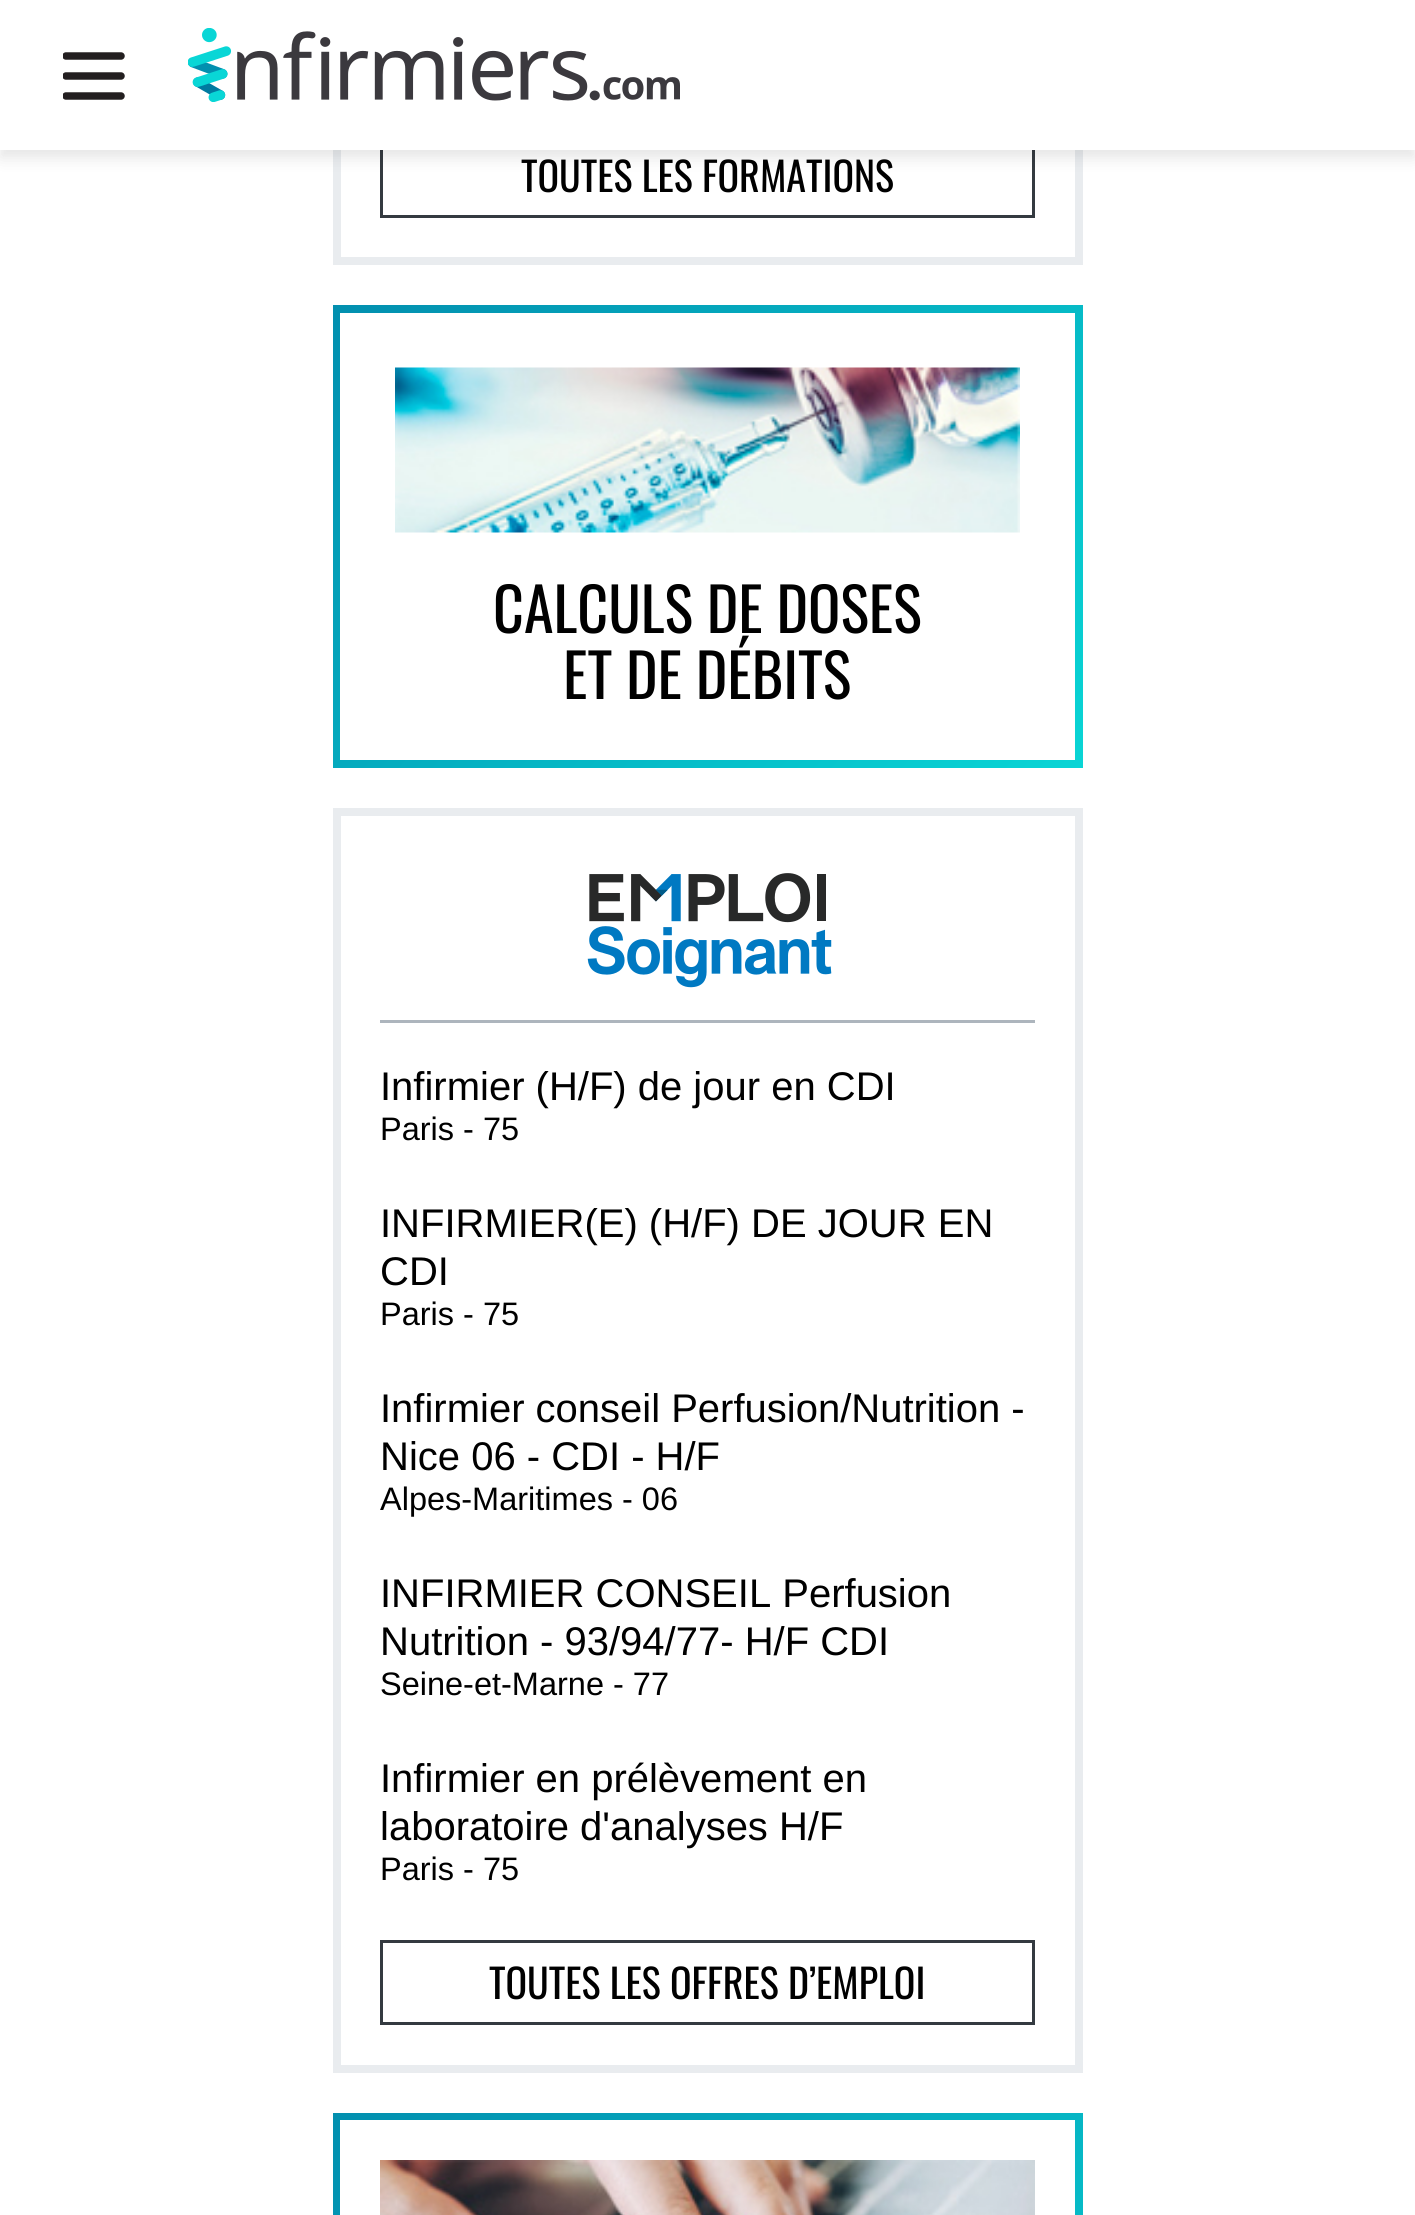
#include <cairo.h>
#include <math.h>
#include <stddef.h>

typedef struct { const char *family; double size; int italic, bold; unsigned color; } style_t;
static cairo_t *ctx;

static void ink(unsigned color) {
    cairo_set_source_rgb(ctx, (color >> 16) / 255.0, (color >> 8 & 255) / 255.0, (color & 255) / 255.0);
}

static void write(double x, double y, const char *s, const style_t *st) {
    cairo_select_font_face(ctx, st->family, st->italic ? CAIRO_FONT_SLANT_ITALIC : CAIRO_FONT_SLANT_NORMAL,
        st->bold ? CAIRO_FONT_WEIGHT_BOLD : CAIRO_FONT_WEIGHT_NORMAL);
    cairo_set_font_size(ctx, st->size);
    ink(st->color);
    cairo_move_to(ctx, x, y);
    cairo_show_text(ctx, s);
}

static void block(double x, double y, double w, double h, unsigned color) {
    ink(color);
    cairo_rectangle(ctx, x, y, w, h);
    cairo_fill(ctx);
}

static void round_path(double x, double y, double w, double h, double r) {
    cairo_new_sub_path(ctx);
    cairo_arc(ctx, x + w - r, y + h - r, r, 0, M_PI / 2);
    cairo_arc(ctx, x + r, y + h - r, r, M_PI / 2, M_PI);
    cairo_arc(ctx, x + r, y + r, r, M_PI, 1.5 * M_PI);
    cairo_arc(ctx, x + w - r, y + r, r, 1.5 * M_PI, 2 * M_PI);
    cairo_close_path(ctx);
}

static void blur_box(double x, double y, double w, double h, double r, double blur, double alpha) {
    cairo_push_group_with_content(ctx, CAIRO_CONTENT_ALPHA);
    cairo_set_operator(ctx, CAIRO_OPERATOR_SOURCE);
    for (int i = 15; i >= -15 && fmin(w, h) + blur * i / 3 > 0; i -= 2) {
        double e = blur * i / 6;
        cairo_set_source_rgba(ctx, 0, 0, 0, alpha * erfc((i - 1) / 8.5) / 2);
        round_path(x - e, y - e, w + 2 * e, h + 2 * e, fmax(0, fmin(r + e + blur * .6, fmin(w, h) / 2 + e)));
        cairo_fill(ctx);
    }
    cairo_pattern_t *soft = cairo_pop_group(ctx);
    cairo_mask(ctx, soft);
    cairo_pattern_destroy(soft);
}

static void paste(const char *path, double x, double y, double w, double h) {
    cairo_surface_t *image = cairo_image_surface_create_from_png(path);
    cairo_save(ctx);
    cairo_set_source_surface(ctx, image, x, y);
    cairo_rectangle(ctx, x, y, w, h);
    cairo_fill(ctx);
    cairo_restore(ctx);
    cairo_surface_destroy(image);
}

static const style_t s1 = {"Oswald", 40, 0, 0, 0x000000};
static const style_t s2 = {"Oswald", 60, 0, 0, 0x000000};
static const style_t s3 = {"Liberation Sans", 40, 0, 0, 0x000000};
static const style_t s4 = {"Liberation Sans", 32.5, 0, 0, 0x000000};

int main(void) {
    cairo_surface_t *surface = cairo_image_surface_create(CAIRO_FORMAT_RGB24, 1415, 2215);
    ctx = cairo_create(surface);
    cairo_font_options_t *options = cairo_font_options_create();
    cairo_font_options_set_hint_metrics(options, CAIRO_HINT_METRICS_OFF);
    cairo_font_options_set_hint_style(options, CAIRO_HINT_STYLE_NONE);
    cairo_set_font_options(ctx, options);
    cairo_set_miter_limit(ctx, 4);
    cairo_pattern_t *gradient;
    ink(0xffffff);
    cairo_paint(ctx);
    cairo_rectangle(ctx, 337, -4, 742, 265);
    ink(0xe9ecef);
    cairo_set_line_width(ctx, 8);
    cairo_stroke(ctx);
    cairo_rectangle(ctx, 381.5, 134.5, 652, 82);
    ink(0x343a40);
    cairo_set_line_width(ctx, 3);
    cairo_stroke(ctx);
    ink(0x000000);
    blur_box(0, 8, 1415, 150, 0, 7.5, 0.1);
    block(0, 0, 1415, 150, 0xffffff);
    cairo_save(ctx);
    cairo_rectangle(ctx, 63, 45, 62, 63);
    cairo_clip(ctx);
    cairo_new_path(ctx);
    cairo_move_to(ctx, 66, 76);
    cairo_line_to(ctx, 121, 76);
    cairo_move_to(ctx, 66, 56);
    cairo_line_to(ctx, 121, 56);
    cairo_move_to(ctx, 66, 96);
    cairo_line_to(ctx, 121, 96);
    ink(0x231f20);
    cairo_set_line_width(ctx, 7.5);
    cairo_set_line_cap(ctx, CAIRO_LINE_CAP_ROUND);
    cairo_stroke(ctx);
    cairo_restore(ctx);
    paste("pic1.png", 188, 28, 492, 74);
    write(521, 192, "TOUTES LES FORMATIONS", &s1);
    gradient = cairo_pattern_create_linear(404, 233, 1011, 839);
    cairo_pattern_add_color_stop_rgba(gradient, 0, 0.008, 0.561, 0.686, 1);
    cairo_pattern_add_color_stop_rgba(gradient, 1, 0.035, 0.835, 0.835, 1);
    cairo_set_source(ctx, gradient);
    cairo_pattern_destroy(gradient);
    cairo_rectangle(ctx, 333, 305, 750, 463);
    cairo_fill(ctx);
    block(340, 313, 735, 447, 0xffffff);
    paste("pic2.png", 395, 367, 625, 166);
    write(493, 633, "CALCULS DE DOSES", &s2);
    write(563, 699, "ET DE DÉBITS", &s2);
    cairo_rectangle(ctx, 337, 812, 742, 1257);
    ink(0xe9ecef);
    cairo_set_line_width(ctx, 8);
    cairo_stroke(ctx);
    block(380, 1020, 655, 3, 0xadb5bd);
    paste("pic3.png", 587, 873, 245, 115);
    write(380, 1100, "Infirmier (H/F) de jour en CDI", &s3);
    write(380, 1140, "Paris - 75", &s4);
    write(380, 1237, "INFIRMIER(E) (H/F) DE JOUR EN", &s3);
    write(380, 1285, "CDI", &s3);
    write(380, 1325, "Paris - 75", &s4);
    write(380, 1422, "Infirmier conseil Perfusion/Nutrition -", &s3);
    write(380, 1470, "Nice 06 - CDI - H/F", &s3);
    write(380, 1510, "Alpes-Maritimes - 06", &s4);
    write(380, 1607, "INFIRMIER CONSEIL Perfusion", &s3);
    write(380, 1655, "Nutrition - 93/94/77- H/F CDI", &s3);
    write(380, 1695, "Seine-et-Marne - 77", &s4);
    write(380, 1792, "Infirmier en prélèvement en", &s3);
    write(380, 1840, "laboratoire d'analyses H/F", &s3);
    write(380, 1880, "Paris - 75", &s4);
    cairo_rectangle(ctx, 381.5, 1941.5, 652, 82);
    ink(0x343a40);
    cairo_set_line_width(ctx, 3);
    cairo_stroke(ctx);
    write(489, 1999, "TOUTES LES OFFRES D’EMPLOI", &s1);
    gradient = cairo_pattern_create_linear(367, 2078, 1048, 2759);
    cairo_pattern_add_color_stop_rgba(gradient, 0, 0.008, 0.561, 0.686, 1);
    cairo_pattern_add_color_stop_rgba(gradient, 1, 0.035, 0.835, 0.835, 1);
    cairo_set_source(ctx, gradient);
    cairo_pattern_destroy(gradient);
    cairo_rectangle(ctx, 333, 2113, 750, 102);
    cairo_fill(ctx);
    block(340, 2120, 735, 95, 0xffffff);
    paste("pic4.png", 380, 2160, 655, 55);
    cairo_surface_write_to_png(surface, "screenshot.png");
    cairo_font_options_destroy(options);
    cairo_destroy(ctx);
    cairo_surface_destroy(surface);
    return 0;
}
